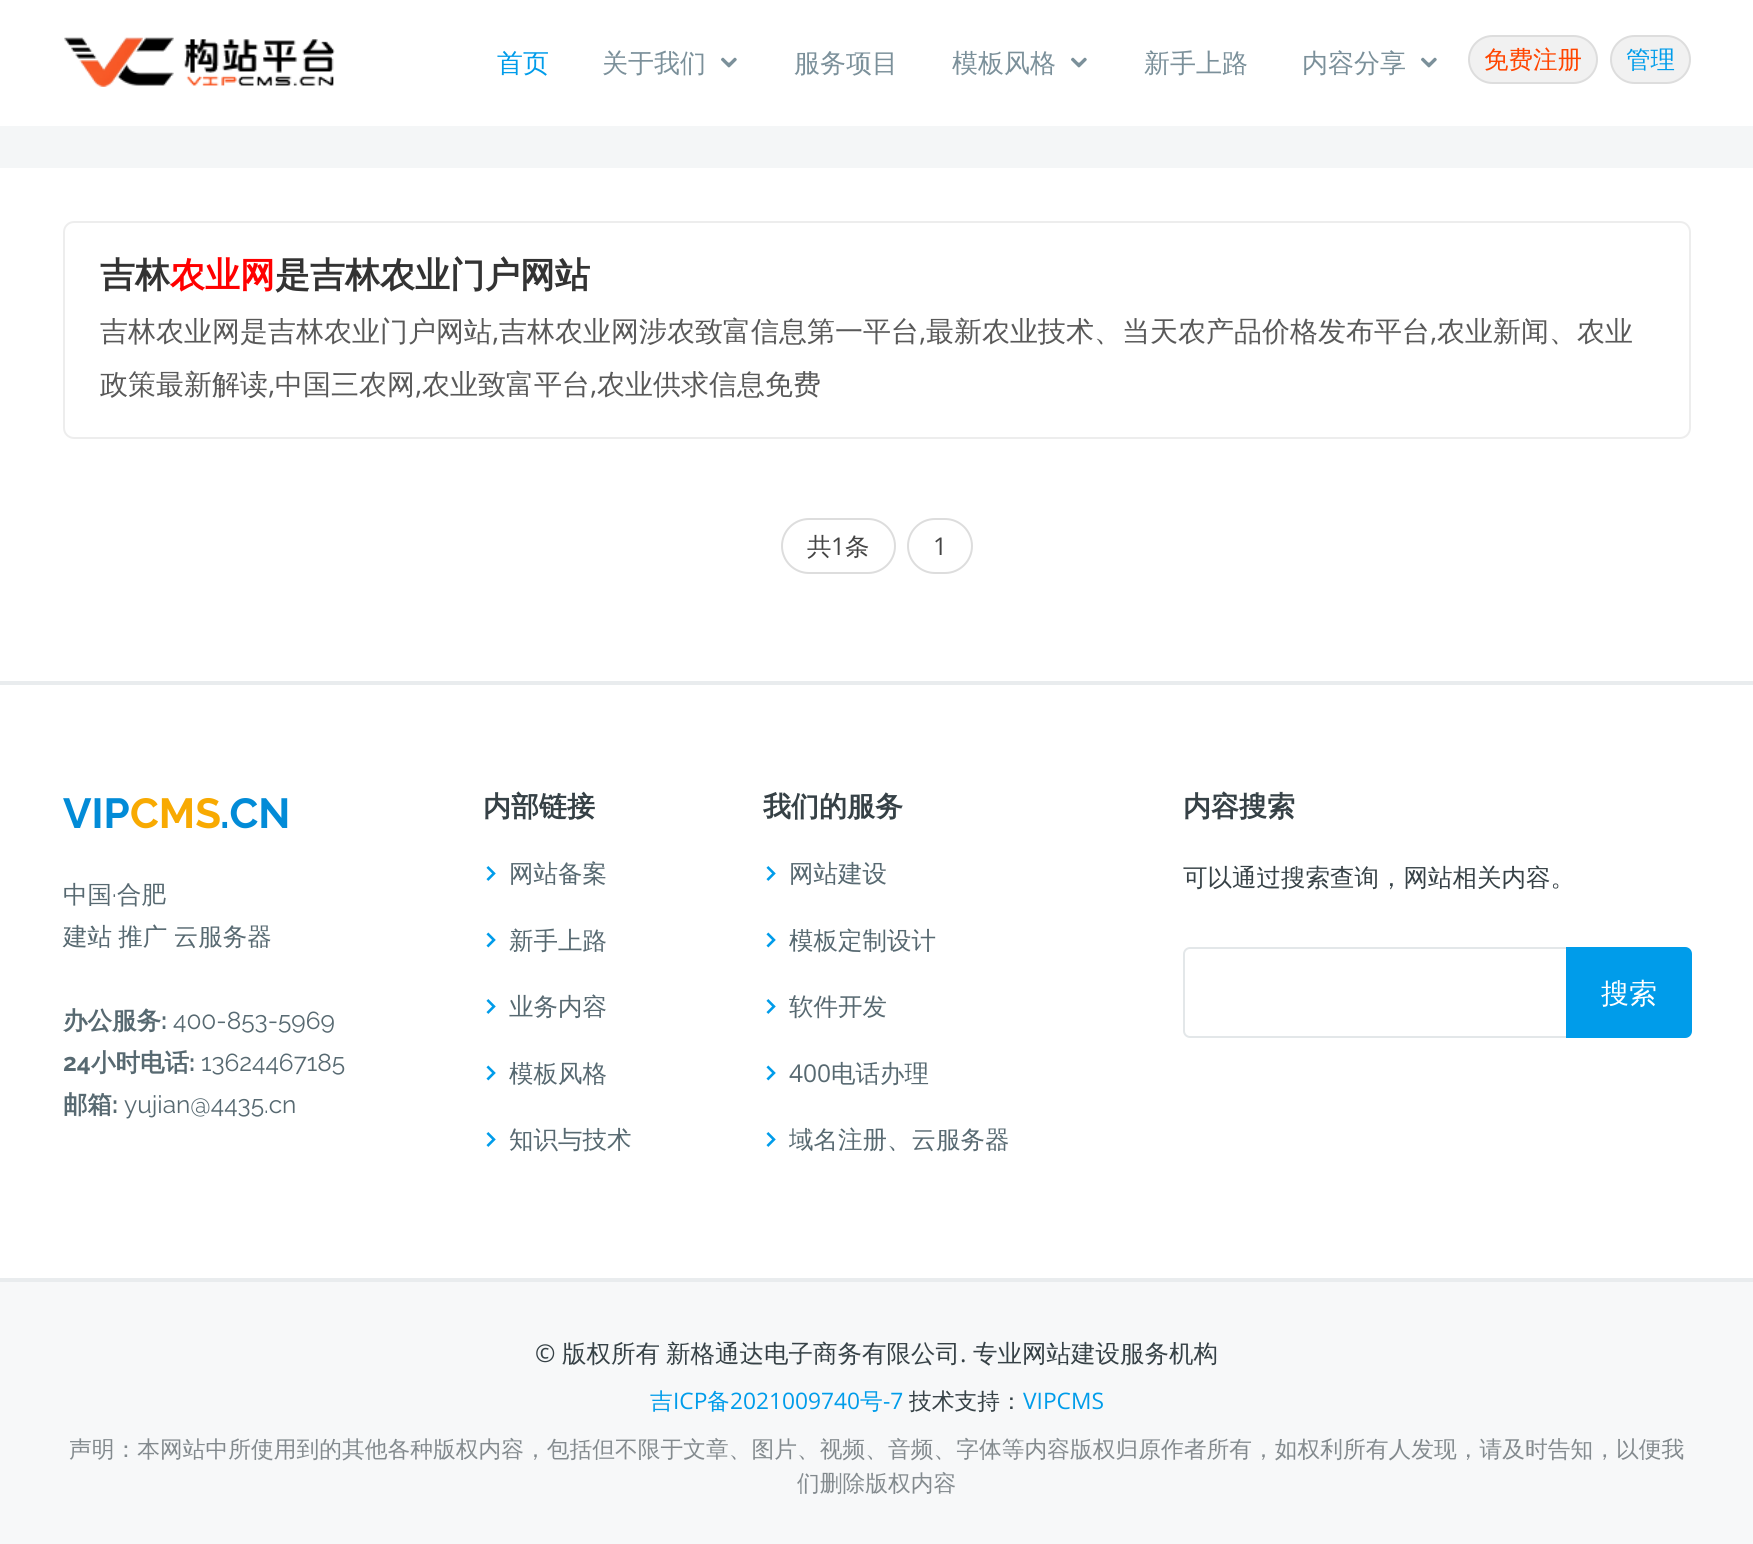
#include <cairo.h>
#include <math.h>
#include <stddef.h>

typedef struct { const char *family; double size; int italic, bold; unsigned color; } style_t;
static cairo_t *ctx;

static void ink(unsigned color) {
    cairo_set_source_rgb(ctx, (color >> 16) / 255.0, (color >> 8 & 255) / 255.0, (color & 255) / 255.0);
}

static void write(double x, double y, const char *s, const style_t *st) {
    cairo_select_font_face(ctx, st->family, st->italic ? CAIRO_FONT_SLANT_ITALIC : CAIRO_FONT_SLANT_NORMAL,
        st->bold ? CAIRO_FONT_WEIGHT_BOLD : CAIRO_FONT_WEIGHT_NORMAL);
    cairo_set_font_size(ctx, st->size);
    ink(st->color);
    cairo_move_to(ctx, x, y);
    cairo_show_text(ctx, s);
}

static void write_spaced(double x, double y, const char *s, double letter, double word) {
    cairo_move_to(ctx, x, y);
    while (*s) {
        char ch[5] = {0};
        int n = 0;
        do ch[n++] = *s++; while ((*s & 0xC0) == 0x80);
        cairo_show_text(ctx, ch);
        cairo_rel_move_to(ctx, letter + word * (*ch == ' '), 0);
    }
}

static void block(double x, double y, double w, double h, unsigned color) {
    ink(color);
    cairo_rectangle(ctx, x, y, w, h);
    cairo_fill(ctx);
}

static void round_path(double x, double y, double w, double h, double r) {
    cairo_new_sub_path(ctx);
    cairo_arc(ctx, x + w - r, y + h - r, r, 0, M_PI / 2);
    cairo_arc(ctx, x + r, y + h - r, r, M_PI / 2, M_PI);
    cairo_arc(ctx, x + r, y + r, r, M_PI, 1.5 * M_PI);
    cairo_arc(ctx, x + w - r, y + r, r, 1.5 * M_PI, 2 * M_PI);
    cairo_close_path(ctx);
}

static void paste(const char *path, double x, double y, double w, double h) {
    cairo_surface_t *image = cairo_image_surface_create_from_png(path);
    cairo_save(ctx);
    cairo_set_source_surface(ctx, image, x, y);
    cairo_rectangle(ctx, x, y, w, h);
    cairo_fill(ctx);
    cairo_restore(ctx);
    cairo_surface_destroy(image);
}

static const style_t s1 = {"WenQuanYi Zen Hei Medium", 26, 0, 0, 0x009cea};
static const style_t s2 = {"WenQuanYi Zen Hei Medium", 26, 0, 0, 0x7b909a};
static const style_t s3 = {"WenQuanYi Zen Hei Medium", 24.5, 0, 0, 0xff4500};
static const style_t s4 = {"WenQuanYi Zen Hei Medium", 24.5, 0, 0, 0x009cea};
static const style_t s5 = {"WenQuanYi Zen Hei", 35, 0, 1, 0x333333};
static const style_t s6 = {"WenQuanYi Zen Hei", 35, 0, 1, 0xff0000};
static const style_t s7 = {"WenQuanYi Zen Hei Medium", 28, 0, 0, 0x595959};
static const style_t s8 = {"Open Sans", 28, 0, 0, 0x595959};
static const style_t s9 = {"WenQuanYi Zen Hei Medium", 24.5, 0, 0, 0x444444};
static const style_t s10 = {"Open Sans", 24.5, 0, 0, 0x444444};
static const style_t s11 = {"Raleway", 42, 0, 1, 0x028bd7};
static const style_t s12 = {"Raleway", 42, 0, 1, 0xf8aa02};
static const style_t s13 = {"WenQuanYi Zen Hei Medium", 24.5, 0, 0, 0x576971};
static const style_t s14 = {"Raleway", 24.5, 0, 0, 0x576971};
static const style_t s15 = {"WenQuanYi Zen Hei", 24.5, 0, 1, 0x576971};
static const style_t s16 = {"Raleway", 24.5, 0, 1, 0x576971};
static const style_t s17 = {"WenQuanYi Zen Hei", 28, 0, 1, 0x364146};
static const style_t s18 = {"Open Sans", 24.5, 0, 0, 0x576971};
static const style_t s19 = {"WenQuanYi Zen Hei Medium", 24.5, 0, 0, 0x364146};
static const style_t s20 = {"WenQuanYi Zen Hei Medium", 28, 0, 0, 0xffffff};
static const style_t s21 = {"Open Sans", 24.5, 0, 0, 0x364146};
static const style_t s22 = {"WenQuanYi Zen Hei Medium", 22.75, 0, 0, 0x009cea};
static const style_t s23 = {"Open Sans", 22.75, 0, 0, 0x009cea};
static const style_t s24 = {"WenQuanYi Zen Hei Medium", 22.75, 0, 0, 0x364146};
static const style_t s25 = {"WenQuanYi Zen Hei Medium", 22.75, 0, 0, 0x838a8e};

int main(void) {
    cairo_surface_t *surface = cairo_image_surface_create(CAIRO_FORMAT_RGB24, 1753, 1544);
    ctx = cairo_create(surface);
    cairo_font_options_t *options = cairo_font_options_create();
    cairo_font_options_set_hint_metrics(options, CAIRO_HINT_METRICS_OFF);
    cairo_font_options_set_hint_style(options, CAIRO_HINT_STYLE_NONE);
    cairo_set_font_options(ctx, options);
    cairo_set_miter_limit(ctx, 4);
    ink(0xffffff);
    cairo_paint(ctx);
    paste("pic1.png", 64, 37, 271, 50);
    write(497, 72, "首页", &s1);
    write(602, 72, "关于我们", &s2);
    paste("pic2.png", 721, 57, 16, 11);
    write(794, 72, "服务项目", &s2);
    write(952, 72, "模板风格", &s2);
    paste("pic2.png", 1071, 57, 16, 11);
    write(1144, 72, "新手上路", &s2);
    write(1302, 72, "内容分享", &s2);
    paste("pic2.png", 1421, 57, 16, 11);
    ink(0xf1f1f1);
    round_path(1469, 36, 128, 47, 23.5);
    cairo_fill_preserve(ctx);
    ink(0xdddddd);
    cairo_stroke(ctx);
    write(1484, 68, "免费注册", &s3);
    ink(0xf1f1f1);
    round_path(1611, 36, 79, 47, 23.5);
    cairo_fill_preserve(ctx);
    ink(0xdddddd);
    cairo_stroke(ctx);
    write(1626, 68, "管理", &s4);
    block(0, 126, 1753, 42, 0xf4f6f7);
    round_path(64, 222, 1626, 216, 10);
    ink(0xededed);
    cairo_stroke(ctx);
    write(100, 287, "吉林", &s5);
    write(170, 287, "农业网", &s6);
    write(275, 287, "是吉林农业门户网站", &s5);
    write(100, 341, "吉林农业网是吉林农业门户网站", &s7);
    write(492, 341, ",", &s8);
    write(499, 341, "吉林农业网涉农致富信息第一平台", &s7);
    write(919, 341, ",", &s8);
    write(926, 341, "最新农业技术、当天农产品价格发布平台", &s7);
    write(1430, 341, ",", &s8);
    write(1437, 341, "农业新闻、农业", &s7);
    write(100, 394, "政策最新解读", &s7);
    write(268, 394, ",", &s8);
    write(275, 394, "中国三农网", &s7);
    write(415, 394, ",", &s8);
    write(422, 394, "农业致富平台", &s7);
    write(590, 394, ",", &s8);
    write(597, 394, "农业供求信息免费", &s7);
    round_path(782, 519, 113, 54, 27);
    ink(0xdddddd);
    cairo_stroke(ctx);
    write(807, 555, "共", &s9);
    write(831, 555, "1", &s10);
    write(845, 555, "条", &s9);
    round_path(908, 519, 64, 54, 27);
    ink(0xdddddd);
    cairo_stroke(ctx);
    write(933, 555, "1", &s10);
    block(0, 1282, 1753, 262, 0xf7f8f9);
    block(0, 681, 1753, 4, 0xe9ecee);
    block(0, 1278, 1753, 4, 0xe9ecee);
    write(63, 828, "VIP", &s11);
    write(130, 828, "CMS", &s12);
    write(220, 828, ".CN", &s11);
    write(63, 903, "中国", &s13);
    write(112, 903, "·", &s14);
    write(117, 903, "合肥", &s13);
    write_spaced(63, 945, "建站 推广 云服务器", 0, -1);
    write(63, 1029, "办公服务", &s15);
    write(161, 1029, ":", &s16);
    write(173, 1029, "400-853-5969", &s14);
    write(63, 1071, "24", &s16);
    write(91, 1071, "小时电话", &s15);
    write(189, 1071, ":", &s16);
    write(201, 1071, "13624467185", &s14);
    write(63, 1113, "邮箱", &s15);
    write(112, 1113, ":", &s16);
    write(124, 1113, "yujian@4435.cn", &s14);
    write(483, 816, "内部链接", &s17);
    paste("pic3.png", 486, 866, 10, 15);
    write(509, 882, "网站备案", &s13);
    paste("pic4.png", 486, 932, 10, 16);
    write(509, 949, "新手上路", &s13);
    paste("pic3.png", 486, 999, 10, 15);
    write(509, 1015, "业务内容", &s13);
    paste("pic4.png", 486, 1065, 10, 16);
    write(509, 1082, "模板风格", &s13);
    paste("pic3.png", 486, 1132, 10, 15);
    write(509, 1148, "知识与技术", &s13);
    write(763, 816, "我们的服务", &s17);
    paste("pic3.png", 766, 866, 10, 15);
    write(789, 882, "网站建设", &s13);
    paste("pic4.png", 766, 932, 10, 16);
    write(789, 949, "模板定制设计", &s13);
    paste("pic3.png", 766, 999, 10, 15);
    write(789, 1015, "软件开发", &s13);
    paste("pic4.png", 766, 1065, 10, 16);
    write(789, 1082, "400", &s18);
    write(831, 1082, "电话办理", &s13);
    paste("pic3.png", 766, 1132, 10, 15);
    write(789, 1148, "域名注册、云服务器", &s13);
    write(1183, 816, "内容搜索", &s17);
    write(1183, 886, "可以通过搜索查询，网站相关内容。", &s19);
    round_path(1184, 948, 506, 89, 6);
    ink(0xe3e7e9);
    cairo_stroke(ctx);
    ink(0x009cea);
    cairo_new_path(ctx);
    cairo_move_to(ctx, 1566, 947);
    cairo_line_to(ctx, 1685, 947);
    cairo_curve_to(ctx, 1689, 947, 1692, 950, 1692, 954);
    cairo_line_to(ctx, 1692, 1031);
    cairo_curve_to(ctx, 1692, 1035, 1689, 1038, 1685, 1038);
    cairo_line_to(ctx, 1566, 1038);
    cairo_close_path(ctx);
    cairo_fill(ctx);
    write(1601, 1003, "搜索", &s20);
    write(535, 1362, "©", &s21);
    write(562, 1362, "版权所有", &s19);
    write(666, 1362, "新格通达电子商务有限公司", &s19);
    write(960, 1362, ".", &s21);
    write(973, 1362, "专业网站建设服务机构", &s19);
    write(650, 1409, "吉", &s22);
    write(673, 1409, "ICP", &s23);
    write(707, 1409, "备", &s22);
    write(730, 1409, "2021009740", &s23);
    write(860, 1409, "号", &s22);
    write(883, 1409, "-7", &s23);
    write(909, 1409, "技术支持：", &s24);
    write(1023, 1409, "VIPCMS", &s23);
    write(69, 1457, "声明：本网站中所使用到的其他各种版权内容，包括但不限于文章、图片、视频、音频、字体等内容版权归原作者所有，如权利所有人发现，请及时告知，以便我", &s25);
    write(797, 1491, "们删除版权内容", &s25);
    cairo_surface_write_to_png(surface, "screenshot.png");
    cairo_font_options_destroy(options);
    cairo_destroy(ctx);
    cairo_surface_destroy(surface);
    return 0;
}
